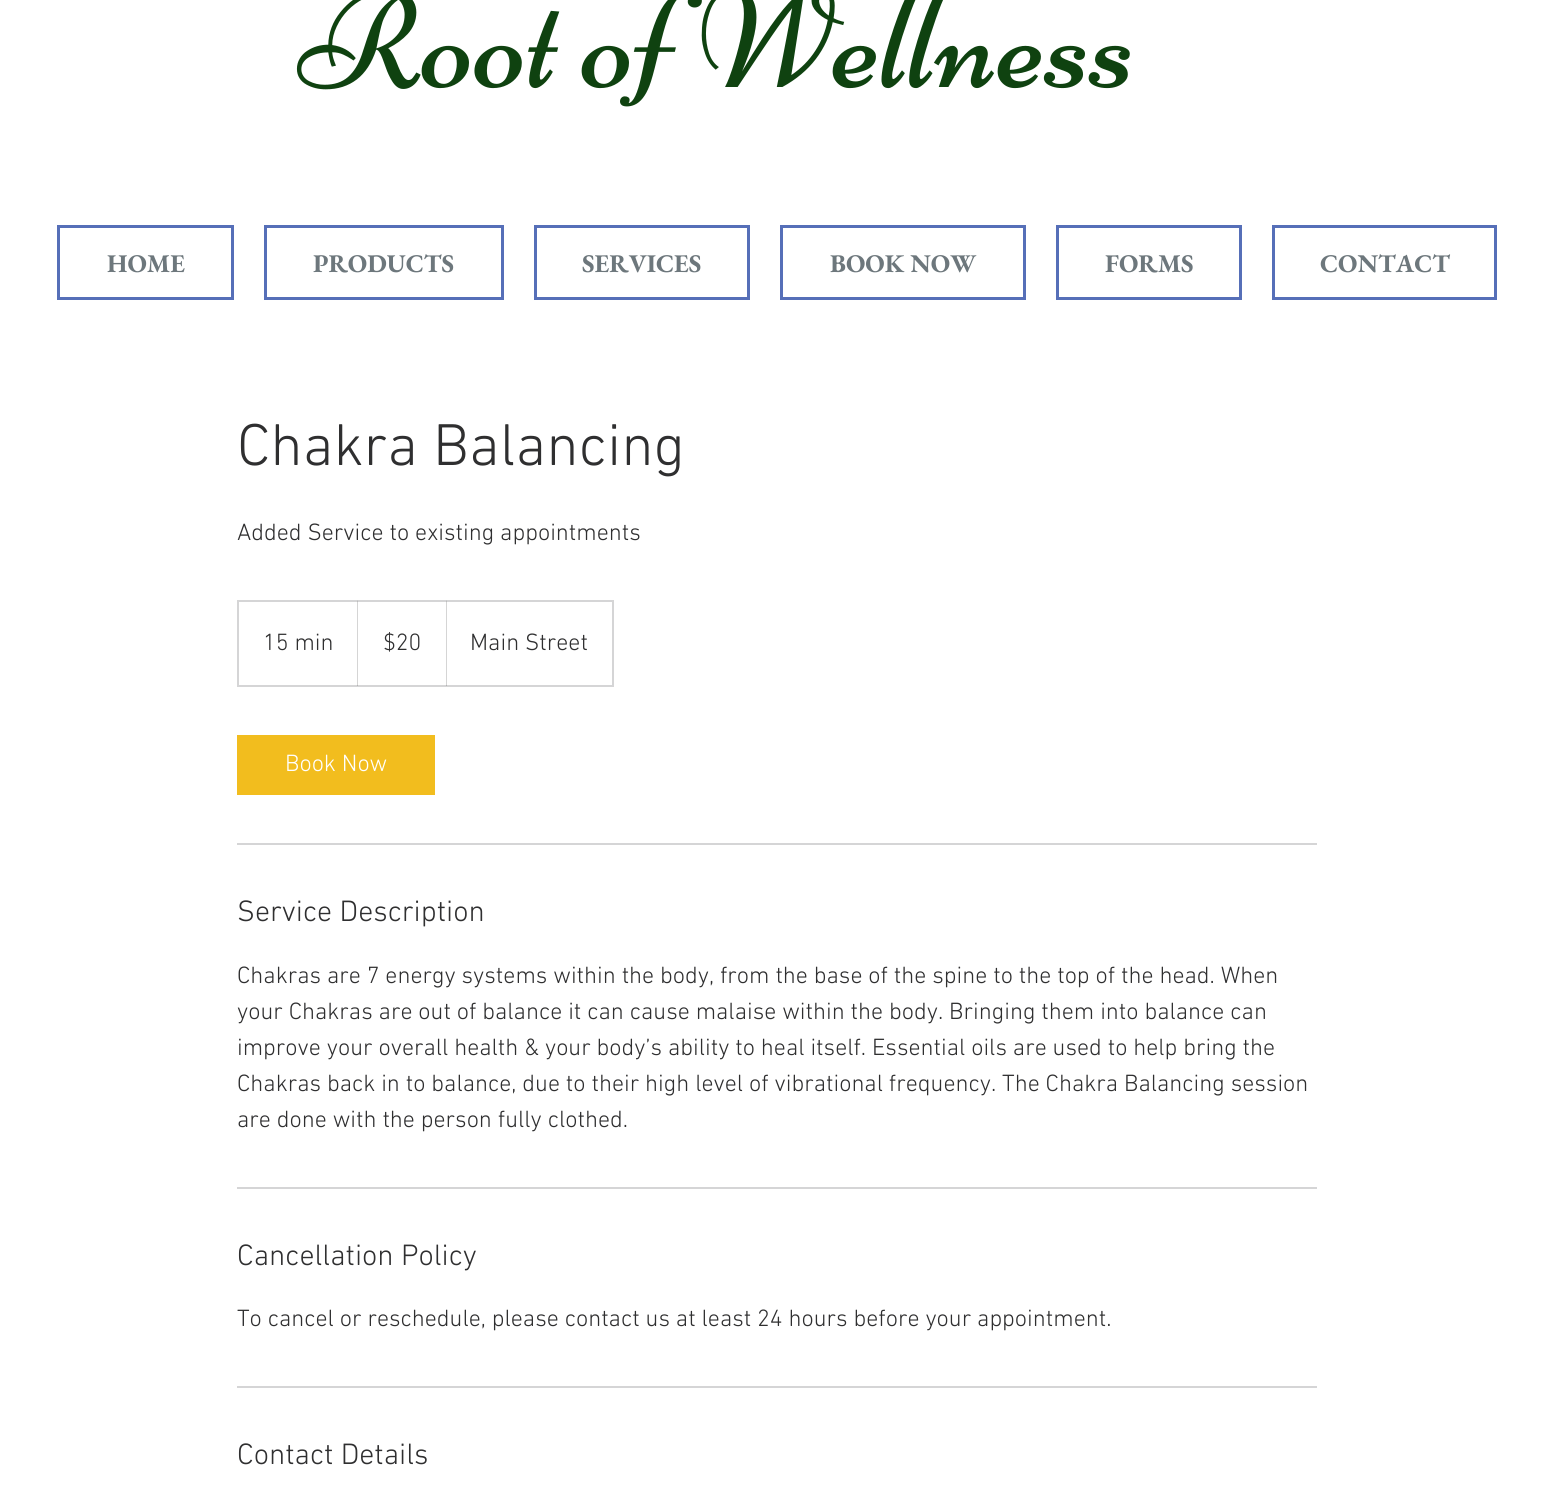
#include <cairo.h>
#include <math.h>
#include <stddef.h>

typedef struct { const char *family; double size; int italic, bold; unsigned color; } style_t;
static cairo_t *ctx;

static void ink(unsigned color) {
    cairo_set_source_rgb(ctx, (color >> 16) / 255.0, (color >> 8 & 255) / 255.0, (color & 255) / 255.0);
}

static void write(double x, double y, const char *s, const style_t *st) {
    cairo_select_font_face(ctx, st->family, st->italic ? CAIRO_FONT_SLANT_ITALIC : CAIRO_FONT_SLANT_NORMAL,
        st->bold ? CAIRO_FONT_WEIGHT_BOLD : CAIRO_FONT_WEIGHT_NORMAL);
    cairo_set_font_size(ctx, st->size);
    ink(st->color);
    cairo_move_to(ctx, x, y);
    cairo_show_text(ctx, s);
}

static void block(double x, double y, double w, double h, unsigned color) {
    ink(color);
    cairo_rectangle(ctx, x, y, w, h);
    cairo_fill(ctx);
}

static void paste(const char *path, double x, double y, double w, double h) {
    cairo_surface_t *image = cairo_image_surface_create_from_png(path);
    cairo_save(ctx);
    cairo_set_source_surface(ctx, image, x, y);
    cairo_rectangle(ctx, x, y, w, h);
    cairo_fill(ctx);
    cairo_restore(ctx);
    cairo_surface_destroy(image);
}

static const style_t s1 = {"EB Garamond", 25.5, 0, 1, 0x6d777c};
static const style_t s2 = {"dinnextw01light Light", 60, 0, 0, 0x2f2f30};
static const style_t s3 = {"dinnextw01light Light", 24, 0, 0, 0x2f2f30};
static const style_t s4 = {"dinnextw01light Light", 24, 0, 0, 0xffffff};
static const style_t s5 = {"dinnextw01light Light", 30, 0, 0, 0x2f2f30};

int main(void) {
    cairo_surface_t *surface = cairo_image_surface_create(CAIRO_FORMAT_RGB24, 1554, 1507);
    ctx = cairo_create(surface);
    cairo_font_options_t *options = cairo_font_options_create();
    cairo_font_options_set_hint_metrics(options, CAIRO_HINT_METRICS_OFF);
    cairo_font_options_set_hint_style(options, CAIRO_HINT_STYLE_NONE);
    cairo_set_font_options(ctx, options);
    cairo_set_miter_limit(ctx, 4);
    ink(0xffffff);
    cairo_paint(ctx);
    paste("pic1.png", 296, 0, 834, 107);
    cairo_rectangle(ctx, 58.5, 226.5, 174, 72);
    ink(0x566fb8);
    cairo_set_line_width(ctx, 3);
    cairo_stroke(ctx);
    write(107, 272, "HOME", &s1);
    cairo_rectangle(ctx, 265.5, 226.5, 237, 72);
    ink(0x566fb8);
    cairo_stroke(ctx);
    write(313, 272, "PRODUCTS", &s1);
    cairo_rectangle(ctx, 535.5, 226.5, 213, 72);
    ink(0x566fb8);
    cairo_stroke(ctx);
    write(582, 272, "SERVICES", &s1);
    cairo_rectangle(ctx, 781.5, 226.5, 243, 72);
    ink(0x566fb8);
    cairo_stroke(ctx);
    write(830, 272, "BOOK NOW", &s1);
    cairo_rectangle(ctx, 1057.5, 226.5, 183, 72);
    ink(0x566fb8);
    cairo_stroke(ctx);
    write(1105, 272, "FORMS", &s1);
    cairo_rectangle(ctx, 1273.5, 226.5, 222, 72);
    ink(0x566fb8);
    cairo_stroke(ctx);
    write(1320, 272, "CONTACT", &s1);
    write(237, 465, "Chakra Balancing", &s2);
    write(237, 540, "Added Service to existing appointments", &s3);
    cairo_rectangle(ctx, 238, 601, 375, 85);
    ink(0xd5d5d6);
    cairo_set_line_width(ctx, 2);
    cairo_stroke(ctx);
    write(263, 650, "15 min", &s3);
    cairo_set_source_rgba(ctx, 0.184, 0.184, 0.188, 0.2);
    cairo_new_path(ctx);
    cairo_move_to(ctx, 357, 686);
    cairo_line_to(ctx, 357, 600);
    cairo_line_to(ctx, 358, 602);
    cairo_line_to(ctx, 358, 686);
    cairo_close_path(ctx);
    cairo_fill(ctx);
    write(383, 650, "$20", &s3);
    cairo_set_source_rgba(ctx, 0.184, 0.184, 0.188, 0.2);
    cairo_new_path(ctx);
    cairo_move_to(ctx, 446, 686);
    cairo_line_to(ctx, 446, 600);
    cairo_line_to(ctx, 447, 602);
    cairo_line_to(ctx, 447, 686);
    cairo_close_path(ctx);
    cairo_fill(ctx);
    write(470, 650, "Main Street", &s3);
    block(237, 735, 198, 60, 0xf2bd1e);
    write(285, 771, "Book Now", &s4);
    block(237, 843, 1080, 2, 0xd5d5d6);
    write(237, 921, "Service Description", &s5);
    write(237, 983, "Chakras are 7 energy systems within the body, from the base of the spine to the top of the head. When", &s3);
    write(237, 1019, "your Chakras are out of balance it can cause malaise within the body. Bringing them into balance can", &s3);
    write(237, 1055, "improve your overall health & your body’s ability to heal itself. Essential oils are used to help bring the", &s3);
    write(237, 1091, "Chakras back in to balance, due to their high level of vibrational frequency. The Chakra Balancing session", &s3);
    write(237, 1127, "are done with the person fully clothed.", &s3);
    block(237, 1187, 1080, 2, 0xd5d5d6);
    write(237, 1265, "Cancellation Policy", &s5);
    write(237, 1326, "To cancel or reschedule, please contact us at least 24 hours before your appointment.", &s3);
    block(237, 1386, 1080, 2, 0xd5d5d6);
    write(237, 1464, "Contact Details", &s5);
    cairo_surface_write_to_png(surface, "screenshot.png");
    cairo_font_options_destroy(options);
    cairo_destroy(ctx);
    cairo_surface_destroy(surface);
    return 0;
}
